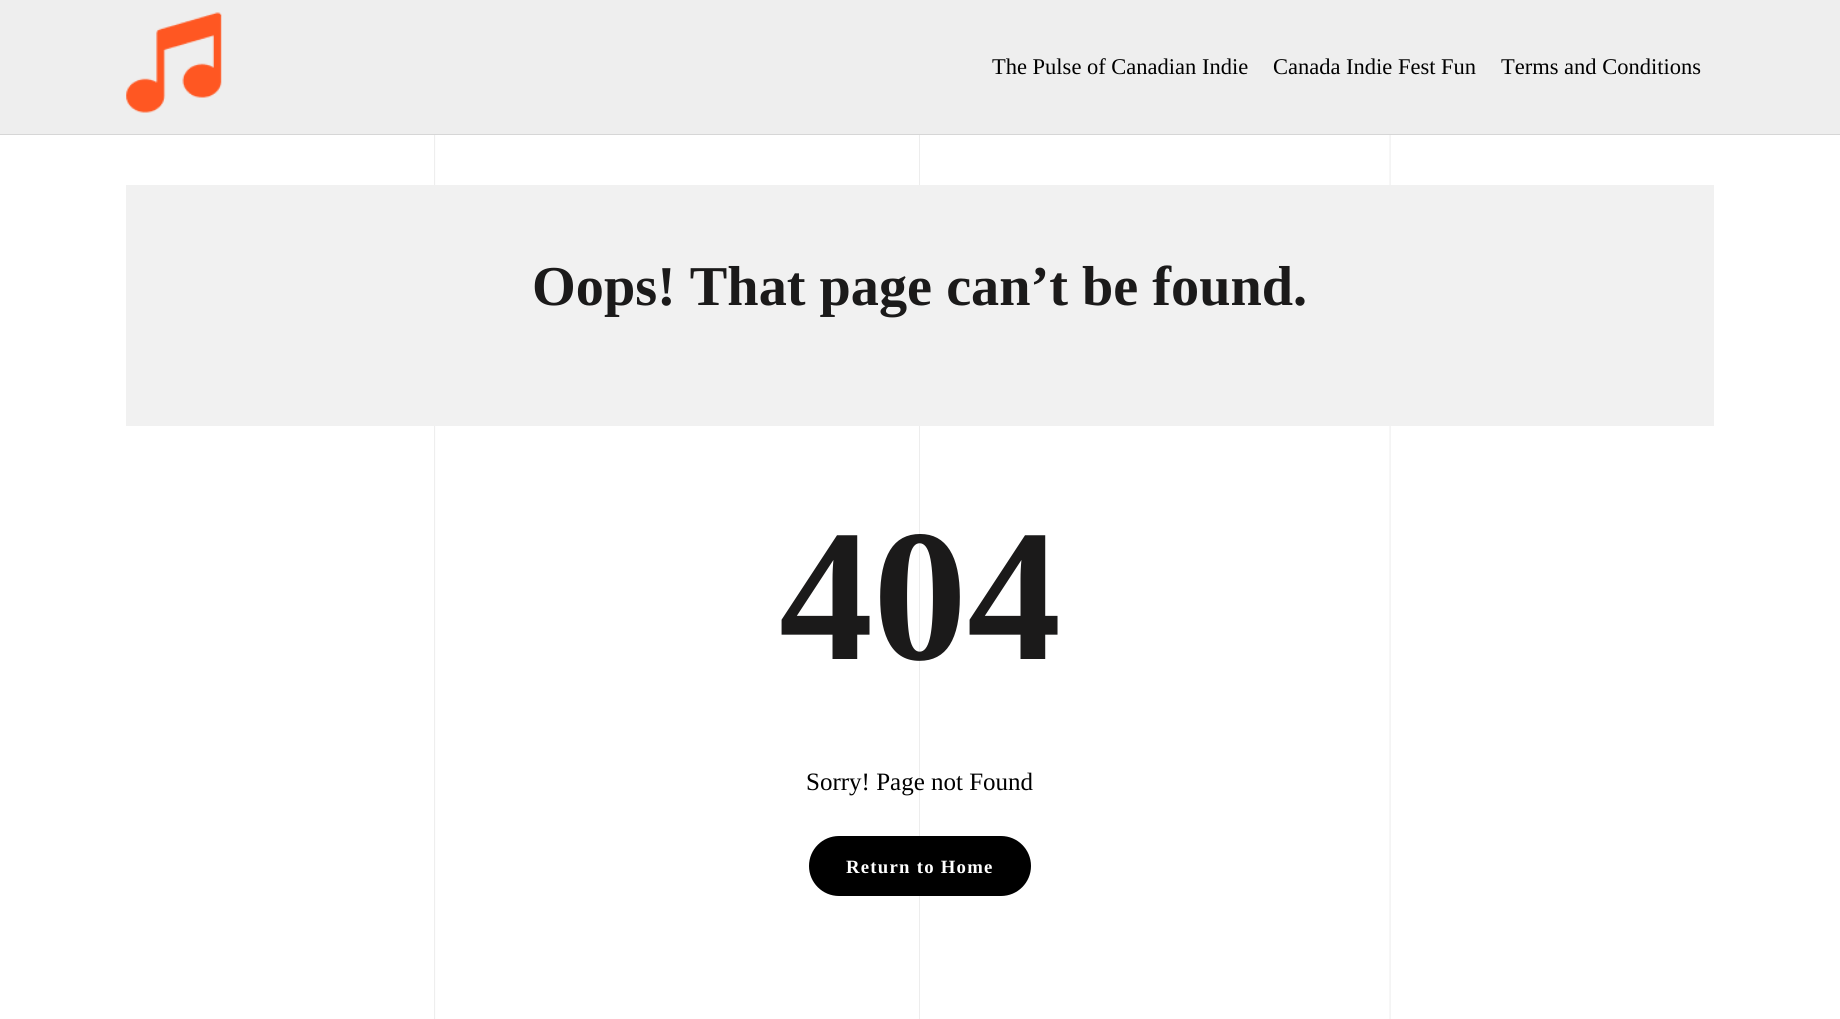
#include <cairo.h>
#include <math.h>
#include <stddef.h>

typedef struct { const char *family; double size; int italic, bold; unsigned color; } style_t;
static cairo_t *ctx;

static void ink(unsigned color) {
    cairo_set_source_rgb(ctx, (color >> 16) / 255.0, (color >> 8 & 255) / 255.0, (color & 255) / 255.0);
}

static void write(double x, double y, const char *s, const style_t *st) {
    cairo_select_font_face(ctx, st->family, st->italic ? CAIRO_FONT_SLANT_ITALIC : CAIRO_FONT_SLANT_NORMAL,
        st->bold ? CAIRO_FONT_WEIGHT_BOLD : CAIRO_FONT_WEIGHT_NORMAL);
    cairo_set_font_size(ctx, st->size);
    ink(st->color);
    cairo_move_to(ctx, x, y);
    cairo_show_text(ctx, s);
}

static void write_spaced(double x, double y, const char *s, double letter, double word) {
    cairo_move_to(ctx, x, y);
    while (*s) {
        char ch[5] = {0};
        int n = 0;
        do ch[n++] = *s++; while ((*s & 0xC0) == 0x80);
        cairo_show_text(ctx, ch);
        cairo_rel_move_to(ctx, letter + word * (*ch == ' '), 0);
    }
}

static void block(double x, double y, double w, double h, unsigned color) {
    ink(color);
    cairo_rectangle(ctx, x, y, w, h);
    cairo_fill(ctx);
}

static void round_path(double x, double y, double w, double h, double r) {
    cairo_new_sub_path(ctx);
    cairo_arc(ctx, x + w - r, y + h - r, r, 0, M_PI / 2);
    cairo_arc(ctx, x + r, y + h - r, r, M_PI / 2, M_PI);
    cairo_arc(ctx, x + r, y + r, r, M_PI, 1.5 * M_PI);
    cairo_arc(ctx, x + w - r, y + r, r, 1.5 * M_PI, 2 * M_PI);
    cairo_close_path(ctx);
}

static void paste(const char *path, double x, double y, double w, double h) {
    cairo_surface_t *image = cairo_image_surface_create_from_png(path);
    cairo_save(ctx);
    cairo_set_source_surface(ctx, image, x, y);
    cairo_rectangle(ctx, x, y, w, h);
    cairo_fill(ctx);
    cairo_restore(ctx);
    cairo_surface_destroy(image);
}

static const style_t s1 = {"Liberation Serif", 22.5, 0, 0, 0x000000};
static const style_t s2 = {"Liberation Serif", 56.25, 0, 1, 0x1b1a1a};
static const style_t s3 = {"Liberation Serif", 188, 0, 1, 0x1b1a1a};
static const style_t s4 = {"Liberation Serif", 25, 0, 0, 0x000000};

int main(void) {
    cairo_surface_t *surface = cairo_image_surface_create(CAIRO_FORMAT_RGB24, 1840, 1019);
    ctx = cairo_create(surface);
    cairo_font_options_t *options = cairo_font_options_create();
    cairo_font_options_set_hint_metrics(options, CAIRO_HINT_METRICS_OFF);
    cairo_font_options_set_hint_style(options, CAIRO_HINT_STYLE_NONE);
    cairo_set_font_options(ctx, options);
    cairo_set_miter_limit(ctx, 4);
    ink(0xffffff);
    cairo_paint(ctx);
    paste("pic1.png", 434, 135, 957, 884);
    block(0, 0, 1840, 134, 0xeeeeee);
    block(0, 134, 1840, 1, 0xd6d6d6);
    paste("pic2.png", 126, 12, 96, 101);
    write(992, 74, "The Pulse of Canadian Indie", &s1);
    write(1273, 74, "Canada Indie Fest Fun", &s1);
    write(1501, 74, "Terms and Conditions", &s1);
    block(126, 185, 1588, 241, 0xf1f1f1);
    write(532, 305, "Oops! That page can’t be found.", &s2);
    write(779, 659, "404", &s3);
    write(806, 790, "Sorry! Page not Found", &s4);
    round_path(809, 836, 222, 60, 30);
    cairo_fill(ctx);
    cairo_select_font_face(ctx, "Liberation Serif", CAIRO_FONT_SLANT_NORMAL, CAIRO_FONT_WEIGHT_BOLD);
    cairo_set_font_size(ctx, 18.75);
    ink(0xffffff);
    write_spaced(846, 873, "Return to Home", 1.25, 0);
    cairo_surface_write_to_png(surface, "screenshot.png");
    cairo_font_options_destroy(options);
    cairo_destroy(ctx);
    cairo_surface_destroy(surface);
    return 0;
}
